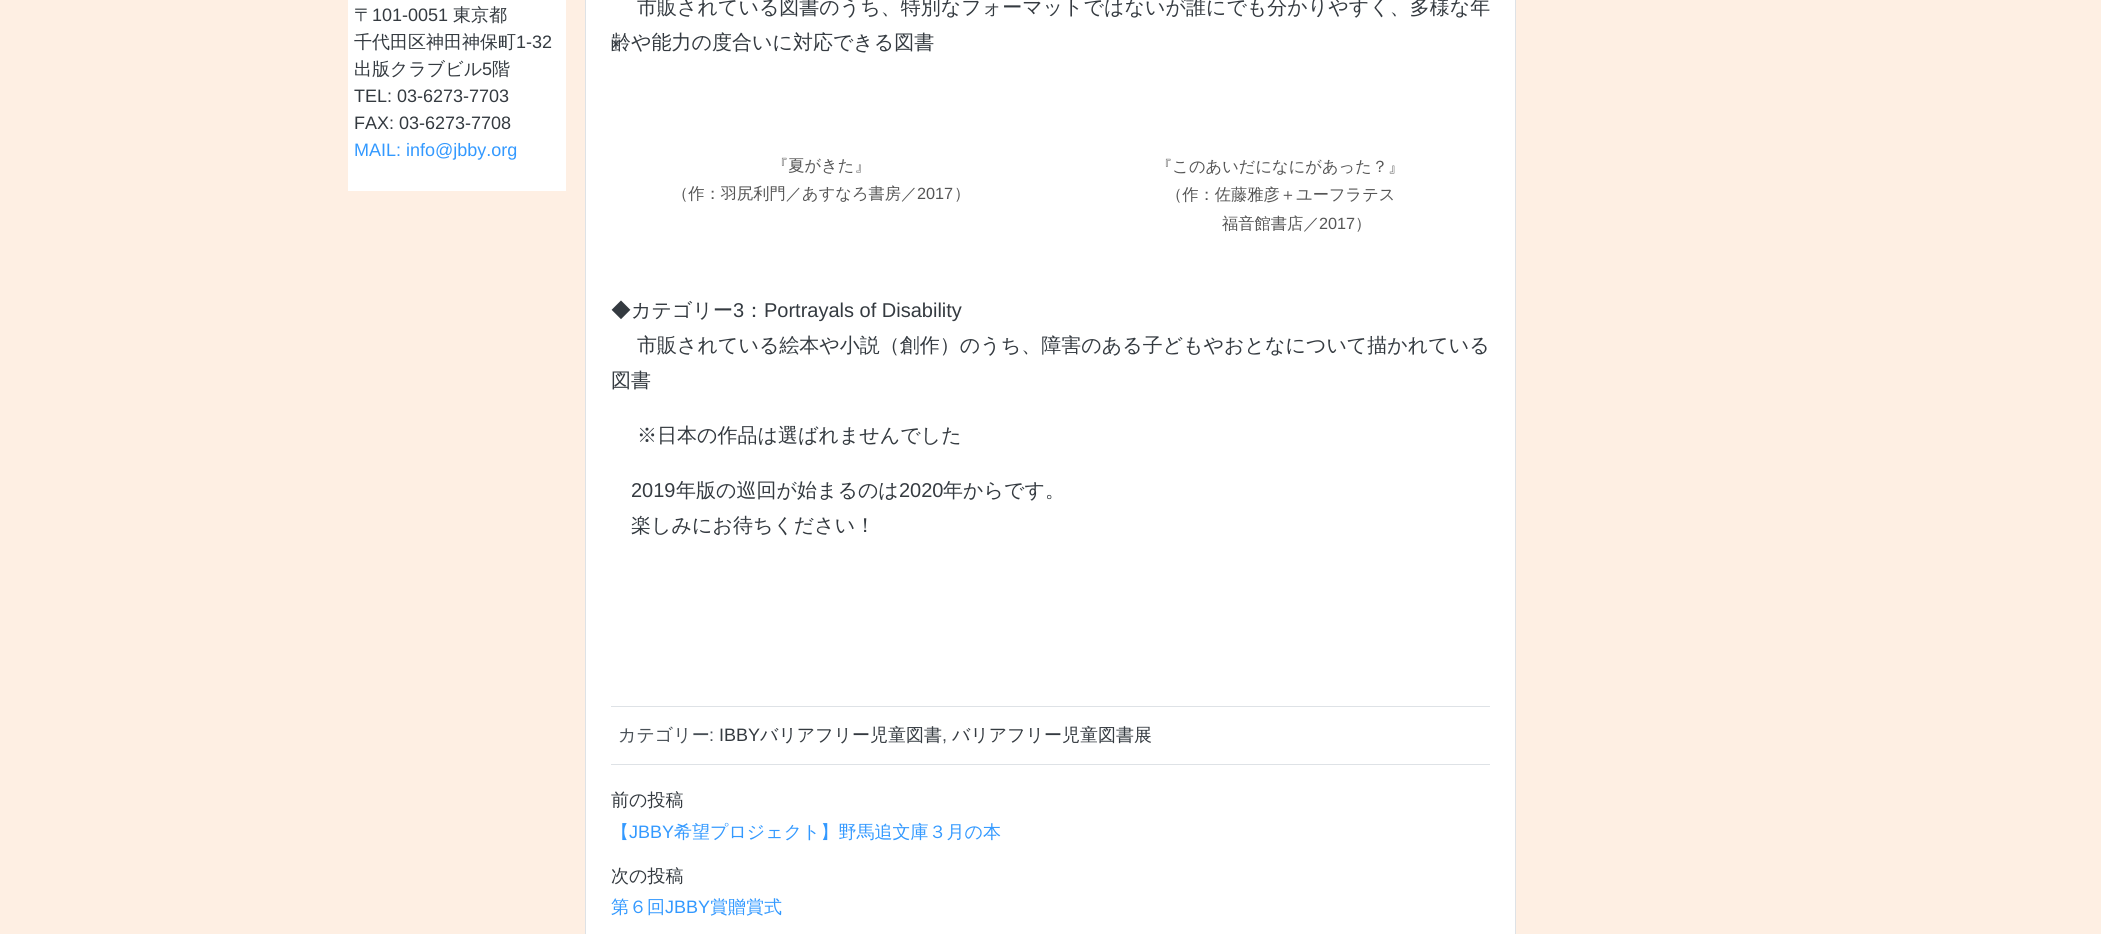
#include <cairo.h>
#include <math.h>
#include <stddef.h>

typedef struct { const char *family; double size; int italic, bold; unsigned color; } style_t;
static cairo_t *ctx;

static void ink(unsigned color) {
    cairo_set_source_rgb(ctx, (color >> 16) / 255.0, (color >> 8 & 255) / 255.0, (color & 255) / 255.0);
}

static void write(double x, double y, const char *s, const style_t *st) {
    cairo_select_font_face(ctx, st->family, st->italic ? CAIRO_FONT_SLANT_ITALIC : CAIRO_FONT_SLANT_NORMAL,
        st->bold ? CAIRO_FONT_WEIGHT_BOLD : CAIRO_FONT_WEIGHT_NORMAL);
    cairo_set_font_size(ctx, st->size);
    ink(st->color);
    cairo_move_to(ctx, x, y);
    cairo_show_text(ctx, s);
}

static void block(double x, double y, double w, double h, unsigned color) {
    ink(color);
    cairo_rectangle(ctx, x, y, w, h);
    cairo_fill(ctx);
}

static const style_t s1 = {"WenQuanYi Zen Hei Medium", 18, 0, 0, 0x343a40};
static const style_t s2 = {"Liberation Sans", 18, 0, 0, 0x343a40};
static const style_t s3 = {"Liberation Sans", 18, 0, 0, 0x3399ff};
static const style_t s4 = {"WenQuanYi Zen Hei Medium", 20, 0, 0, 0x343a40};
static const style_t s5 = {"WenQuanYi Zen Hei Medium", 16.25, 0, 0, 0x555555};
static const style_t s6 = {"Liberation Sans", 16.25, 0, 0, 0x555555};
static const style_t s7 = {"Liberation Sans", 20, 0, 0, 0x343a40};
static const style_t s8 = {"WenQuanYi Zen Hei Medium", 18, 0, 0, 0x495057};
static const style_t s9 = {"Liberation Sans", 18, 0, 0, 0x495057};
static const style_t s10 = {"WenQuanYi Zen Hei Medium", 18, 0, 0, 0x3399ff};

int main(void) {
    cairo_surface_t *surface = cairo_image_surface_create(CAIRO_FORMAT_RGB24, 2101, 934);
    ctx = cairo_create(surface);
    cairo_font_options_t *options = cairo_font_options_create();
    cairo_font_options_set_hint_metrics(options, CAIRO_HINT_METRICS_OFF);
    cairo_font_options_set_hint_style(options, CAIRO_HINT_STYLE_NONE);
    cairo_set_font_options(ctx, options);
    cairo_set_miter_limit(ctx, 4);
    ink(0xfeefe3);
    cairo_paint(ctx);
    block(348, 0, 218, 191, 0xffffff);
    write(354, 21, "〒", &s1);
    write(372, 21, "101-0051", &s2);
    write(453, 21, "東京都", &s1);
    write(354, 48, "千代田区神田神保町", &s1);
    write(516, 48, "1-32", &s2);
    write(354, 75, "出版クラブビル", &s1);
    write(482, 75, "5", &s2);
    write(492, 75, "階", &s1);
    write(354, 102, "TEL: 03-6273-7703", &s2);
    write(354, 129, "FAX: 03-6273-7708", &s2);
    write(354, 156, "MAIL: info@jbby.org", &s3);
    ink(0xffffff);
    cairo_rectangle(ctx, 585.5, -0.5, 930, 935);
    cairo_fill_preserve(ctx);
    ink(0xdee2e6);
    cairo_set_line_width(ctx, 1);
    cairo_stroke(ctx);
    write(637, 14, "市販されている図書のうち、特別なフォーマットではないが誰にでも分かりやすく、多様な年", &s4);
    write(611, 49, "齢や能力の度合いに対応できる図書", &s4);
    write(772, 171, "『夏がきた』", &s5);
    write(672, 199, "（作：羽尻利門／あすなろ書房／", &s5);
    write(917, 199, "2017", &s6);
    write(954, 199, "）", &s5);
    write(1156, 172, "『このあいだになにがあった？』", &s5);
    write(1166, 200, "（作：佐藤雅彦＋ユーフラテス", &s5);
    write(1222, 229, "福音館書店／", &s5);
    write(1319, 229, "2017", &s6);
    write(1355, 229, "）", &s5);
    write(611, 317, "◆カテゴリー", &s4);
    write(733, 317, "3", &s7);
    write(744, 317, "：", &s4);
    write(764, 317, "Portrayals of Disability", &s7);
    write(637, 352, "市販されている絵本や小説（創作）のうち、障害のある子どもやおとなについて描かれている", &s4);
    write(611, 387, "図書", &s4);
    write(637, 442, "※日本の作品は選ばれませんでした", &s4);
    write(631, 497, "2019", &s7);
    write(676, 497, "年版の巡回が始まるのは", &s4);
    write(899, 497, "2020", &s7);
    write(943, 497, "年からです。", &s4);
    write(631, 532, "楽しみにお待ちください！", &s4);
    block(611, 706, 879, 1, 0xdee2e6);
    block(611, 764, 879, 1, 0xdee2e6);
    write(618, 741, "カテゴリー", &s8);
    write(709, 741, ":", &s9);
    write(719, 741, "IBBY", &s2);
    write(760, 741, "バリアフリー児童図書", &s1);
    write(952, 741, "バリアフリー児童図書展", &s1);
    write(942, 741, ",", &s9);
    write(611, 806, "前の投稿", &s1);
    write(611, 838, "【", &s10);
    write(629, 838, "JBBY", &s3);
    write(674, 838, "希望プロジェクト】野馬追文庫３月の本", &s10);
    write(611, 882, "次の投稿", &s1);
    write(611, 913, "第６回", &s10);
    write(665, 913, "JBBY", &s3);
    write(710, 913, "賞贈賞式", &s10);
    cairo_surface_write_to_png(surface, "screenshot.png");
    cairo_font_options_destroy(options);
    cairo_destroy(ctx);
    cairo_surface_destroy(surface);
    return 0;
}
